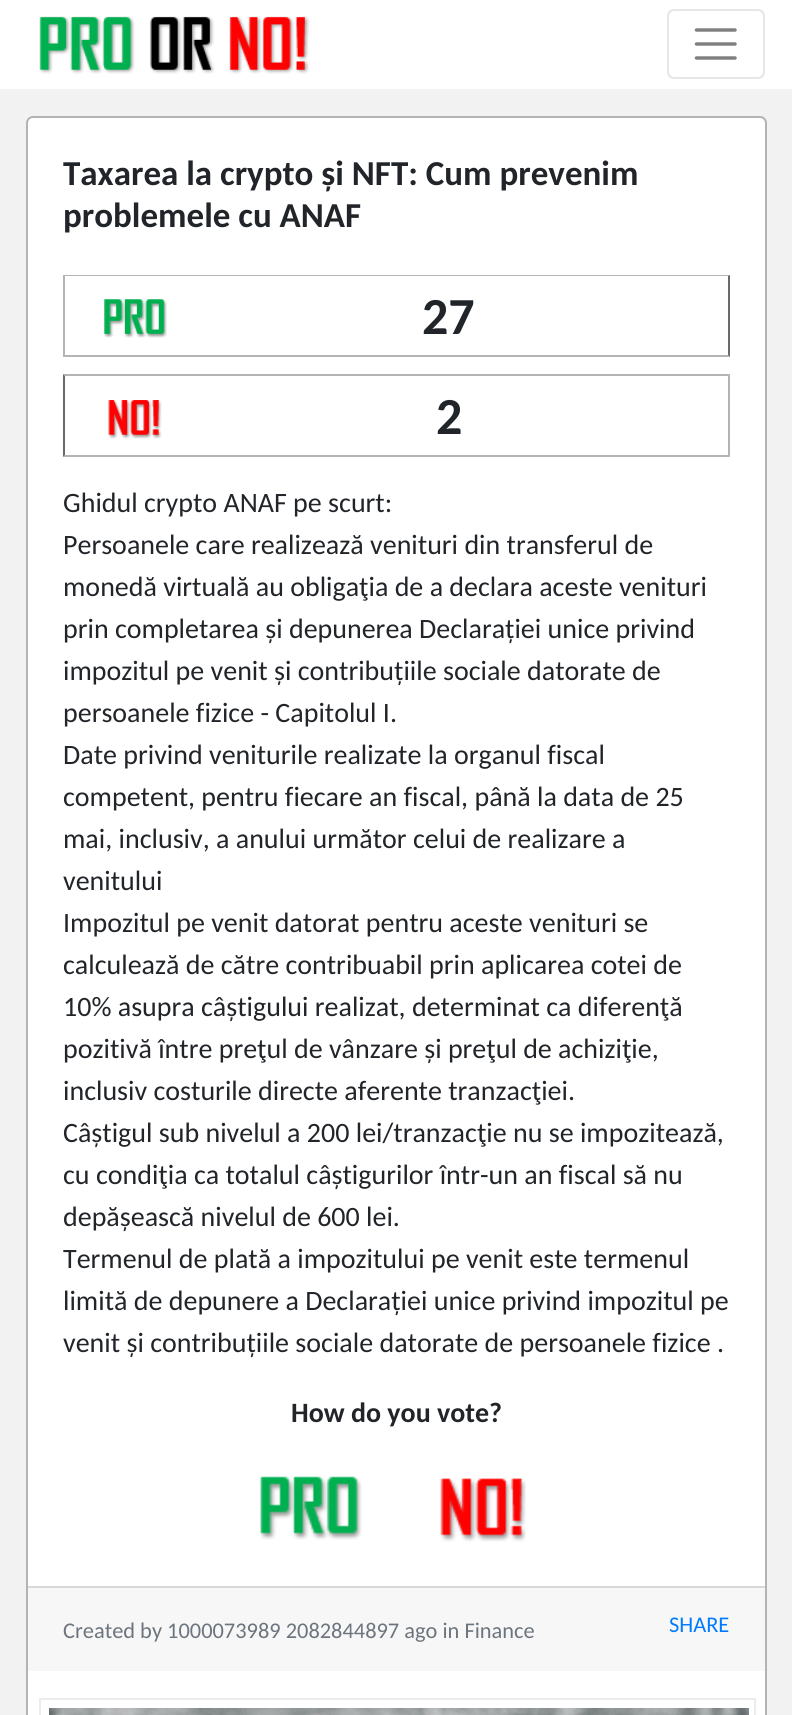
#include <cairo.h>
#include <math.h>
#include <stddef.h>

typedef struct { const char *family; double size; int italic, bold; unsigned color; } style_t;
static cairo_t *ctx;

static void ink(unsigned color) {
    cairo_set_source_rgb(ctx, (color >> 16) / 255.0, (color >> 8 & 255) / 255.0, (color & 255) / 255.0);
}

static void write(double x, double y, const char *s, const style_t *st) {
    cairo_select_font_face(ctx, st->family, st->italic ? CAIRO_FONT_SLANT_ITALIC : CAIRO_FONT_SLANT_NORMAL,
        st->bold ? CAIRO_FONT_WEIGHT_BOLD : CAIRO_FONT_WEIGHT_NORMAL);
    cairo_set_font_size(ctx, st->size);
    ink(st->color);
    cairo_move_to(ctx, x, y);
    cairo_show_text(ctx, s);
}

static void block(double x, double y, double w, double h, unsigned color) {
    ink(color);
    cairo_rectangle(ctx, x, y, w, h);
    cairo_fill(ctx);
}

static void round_path(double x, double y, double w, double h, double r) {
    cairo_new_sub_path(ctx);
    cairo_arc(ctx, x + w - r, y + h - r, r, 0, M_PI / 2);
    cairo_arc(ctx, x + r, y + h - r, r, M_PI / 2, M_PI);
    cairo_arc(ctx, x + r, y + r, r, M_PI, 1.5 * M_PI);
    cairo_arc(ctx, x + w - r, y + r, r, 1.5 * M_PI, 2 * M_PI);
    cairo_close_path(ctx);
}

static void paste(const char *path, double x, double y, double w, double h) {
    cairo_surface_t *image = cairo_image_surface_create_from_png(path);
    cairo_save(ctx);
    cairo_set_source_surface(ctx, image, x, y);
    cairo_rectangle(ctx, x, y, w, h);
    cairo_fill(ctx);
    cairo_restore(ctx);
    cairo_surface_destroy(image);
}

static const style_t s1 = {"Carlito", 35, 0, 1, 0x212529};
static const style_t s2 = {"Carlito", 52, 0, 1, 0x212529};
static const style_t s3 = {"Carlito", 28, 0, 0, 0x212529};
static const style_t s4 = {"Carlito", 28, 0, 1, 0x212529};
static const style_t s5 = {"Carlito", 22.4, 0, 0, 0x6c757d};
static const style_t s6 = {"Carlito", 22.4, 0, 0, 0x007bff};

int main(void) {
    cairo_surface_t *surface = cairo_image_surface_create(CAIRO_FORMAT_RGB24, 792, 1715);
    ctx = cairo_create(surface);
    cairo_font_options_t *options = cairo_font_options_create();
    cairo_font_options_set_hint_metrics(options, CAIRO_HINT_METRICS_OFF);
    cairo_font_options_set_hint_style(options, CAIRO_HINT_STYLE_NONE);
    cairo_set_font_options(ctx, options);
    cairo_set_miter_limit(ctx, 4);
    ink(0xf2f2f2);
    cairo_paint(ctx);
    block(0, 0, 792, 89, 0xffffff);
    paste("pic1.png", 39, 16, 271, 58);
    round_path(668, 10, 96, 68, 6);
    ink(0xe6e6e6);
    cairo_stroke(ctx);
    cairo_new_path(ctx);
    cairo_move_to(ctx, 696.5, 30);
    cairo_line_to(ctx, 735, 30);
    cairo_move_to(ctx, 696.5, 44);
    cairo_line_to(ctx, 735, 44);
    cairo_move_to(ctx, 696.5, 58);
    cairo_line_to(ctx, 735, 58);
    ink(0x808080);
    cairo_set_line_width(ctx, 3.5);
    cairo_set_line_cap(ctx, CAIRO_LINE_CAP_ROUND);
    cairo_stroke(ctx);
    ink(0xffffff);
    round_path(26, 116, 741, 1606, 7);
    cairo_fill(ctx);
    round_path(27, 117, 739, 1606, 6);
    cairo_set_source_rgba(ctx, 0.412, 0.412, 0.412, 0.5);
    cairo_set_line_width(ctx, 2);
    cairo_set_line_cap(ctx, CAIRO_LINE_CAP_BUTT);
    cairo_stroke(ctx);
    write(63, 185, "Taxarea la crypto și NFT: Cum prevenim", &s1);
    write(63, 227, "problemele cu ANAF", &s1);
    ink(0xb4b4b4);
    cairo_new_path(ctx);
    cairo_move_to(ctx, 63, 275);
    cairo_line_to(ctx, 730, 275);
    cairo_line_to(ctx, 728, 276);
    cairo_line_to(ctx, 65, 276);
    cairo_close_path(ctx);
    cairo_fill(ctx);
    ink(0x696969);
    cairo_new_path(ctx);
    cairo_move_to(ctx, 730, 275);
    cairo_line_to(ctx, 730, 357);
    cairo_line_to(ctx, 728, 355);
    cairo_line_to(ctx, 728, 276);
    cairo_close_path(ctx);
    cairo_fill(ctx);
    cairo_set_source_rgba(ctx, 0.412, 0.412, 0.412, 0.5);
    cairo_new_path(ctx);
    cairo_move_to(ctx, 730, 357);
    cairo_line_to(ctx, 63, 357);
    cairo_line_to(ctx, 65, 355);
    cairo_line_to(ctx, 728, 355);
    cairo_close_path(ctx);
    cairo_fill(ctx);
    cairo_new_path(ctx);
    cairo_move_to(ctx, 63, 357);
    cairo_line_to(ctx, 63, 275);
    cairo_line_to(ctx, 65, 276);
    cairo_line_to(ctx, 65, 355);
    cairo_close_path(ctx);
    cairo_fill(ctx);
    paste("pic2.png", 104, 299, 63, 39);
    write(422, 334, "27", &s2);
    ink(0xb4b4b4);
    cairo_new_path(ctx);
    cairo_move_to(ctx, 63, 374);
    cairo_line_to(ctx, 730, 374);
    cairo_line_to(ctx, 728, 376);
    cairo_line_to(ctx, 65, 376);
    cairo_close_path(ctx);
    cairo_fill(ctx);
    cairo_set_source_rgba(ctx, 0.412, 0.412, 0.412, 0.5);
    cairo_new_path(ctx);
    cairo_move_to(ctx, 730, 374);
    cairo_line_to(ctx, 730, 457);
    cairo_line_to(ctx, 728, 455);
    cairo_line_to(ctx, 728, 376);
    cairo_close_path(ctx);
    cairo_fill(ctx);
    cairo_new_path(ctx);
    cairo_move_to(ctx, 730, 457);
    cairo_line_to(ctx, 63, 457);
    cairo_line_to(ctx, 65, 455);
    cairo_line_to(ctx, 728, 455);
    cairo_close_path(ctx);
    cairo_fill(ctx);
    ink(0x696969);
    cairo_new_path(ctx);
    cairo_move_to(ctx, 63, 457);
    cairo_line_to(ctx, 63, 374);
    cairo_line_to(ctx, 65, 376);
    cairo_line_to(ctx, 65, 455);
    cairo_close_path(ctx);
    cairo_fill(ctx);
    paste("pic3.png", 108, 400, 54, 39);
    write(436, 434, "2", &s2);
    write(63, 512, "Ghidul crypto ANAF pe scurt:", &s3);
    write(63, 554, "Persoanele care realizează venituri din transferul de", &s3);
    write(63, 596, "monedă virtuală au obligaţia de a declara aceste venituri", &s3);
    write(63, 638, "prin completarea și depunerea Declarației unice privind", &s3);
    write(63, 680, "impozitul pe venit și contribuțiile sociale datorate de", &s3);
    write(63, 722, "persoanele fizice - Capitolul I.", &s3);
    write(63, 764, "Date privind veniturile realizate la organul fiscal", &s3);
    write(63, 806, "competent, pentru fiecare an fiscal, până la data de 25", &s3);
    write(63, 848, "mai, inclusiv, a anului următor celui de realizare a", &s3);
    write(63, 890, "venitului", &s3);
    write(63, 932, "Impozitul pe venit datorat pentru aceste venituri se", &s3);
    write(63, 974, "calculează de către contribuabil prin aplicarea cotei de", &s3);
    write(63, 1016, "10% asupra câștigului realizat, determinat ca diferenţă", &s3);
    write(63, 1058, "pozitivă între preţul de vânzare și preţul de achiziţie,", &s3);
    write(63, 1100, "inclusiv costurile directe aferente tranzacţiei.", &s3);
    write(63, 1142, "Câștigul sub nivelul a 200 lei/tranzacţie nu se impozitează,", &s3);
    write(63, 1184, "cu condiţia ca totalul câștigurilor într-un an fiscal să nu", &s3);
    write(63, 1226, "depășească nivelul de 600 lei.", &s3);
    write(63, 1268, "Termenul de plată a impozitului pe venit este termenul", &s3);
    write(63, 1310, "limită de depunere a Declarației unice privind impozitul pe", &s3);
    write(63, 1352, "venit și contribuțiile sociale datorate de persoanele fizice .", &s3);
    write(291, 1422, "How do you vote?", &s4);
    paste("pic4.png", 260, 1476, 102, 64);
    paste("pic5.png", 440, 1478, 86, 64);
    block(28, 1588, 737, 83, 0xf7f7f7);
    block(28, 1586, 737, 2, 0xd8d8d8);
    write(63, 1638, "Created by 1000073989 2082844897 ago in Finance", &s5);
    write(669, 1632, "SHARE", &s6);
    cairo_rectangle(ctx, 40, 1699, 715, 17);
    ink(0xececec);
    cairo_stroke(ctx);
    paste("pic6.png", 49, 1708, 700, 7);
    cairo_surface_write_to_png(surface, "screenshot.png");
    cairo_font_options_destroy(options);
    cairo_destroy(ctx);
    cairo_surface_destroy(surface);
    return 0;
}
